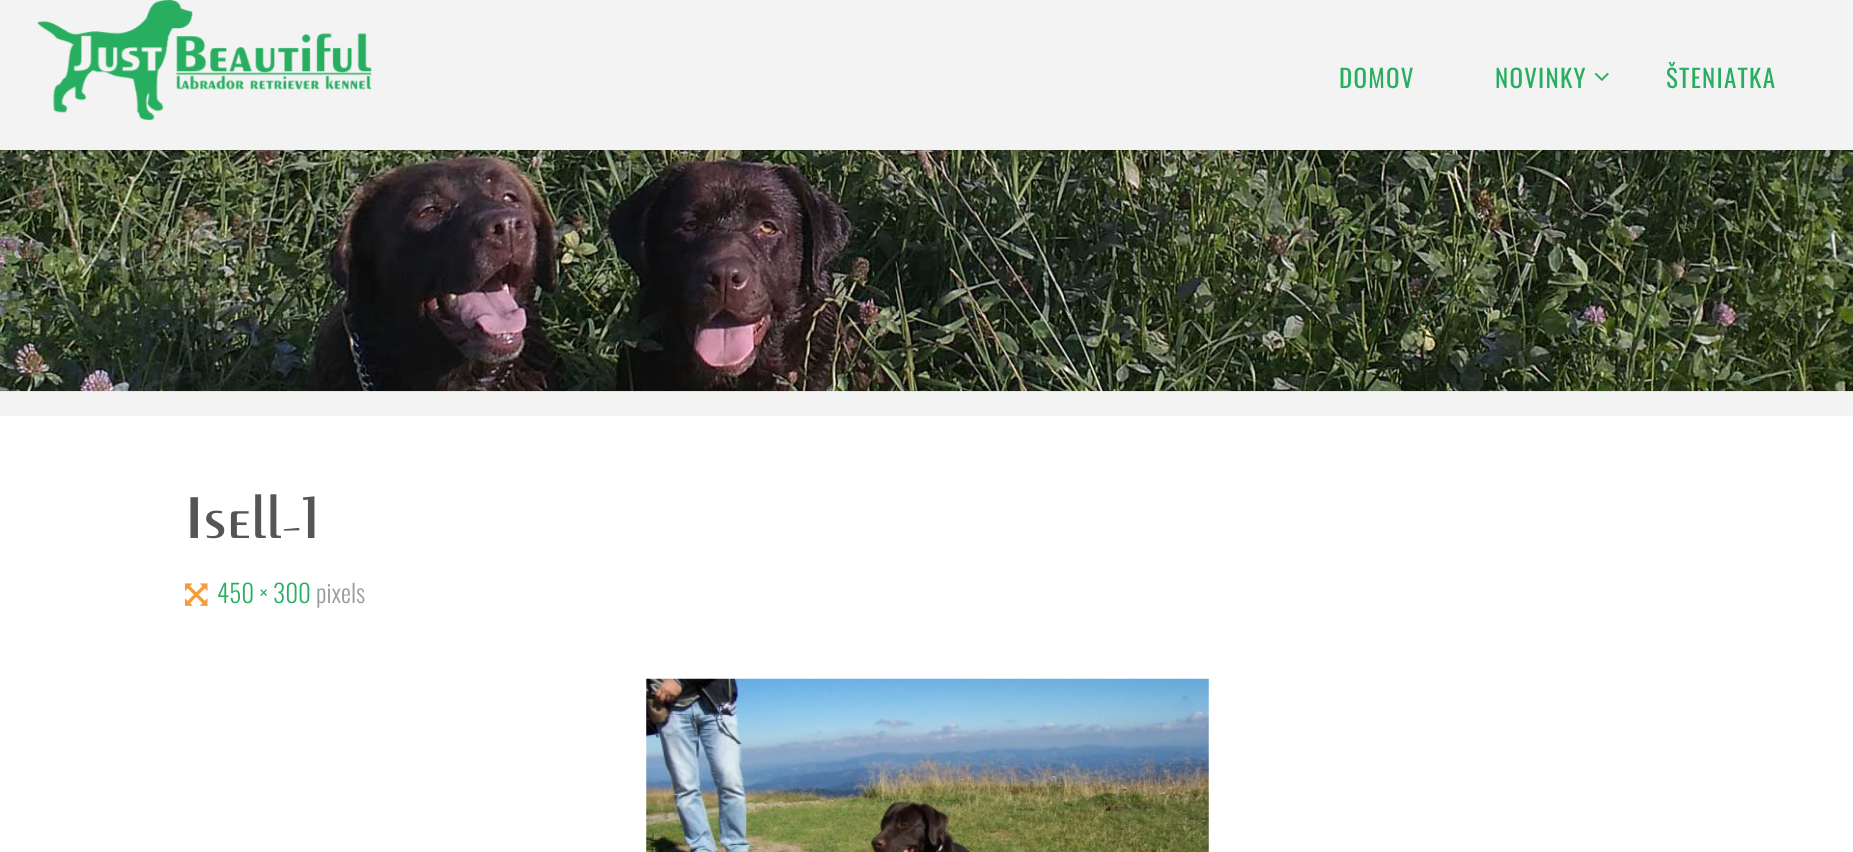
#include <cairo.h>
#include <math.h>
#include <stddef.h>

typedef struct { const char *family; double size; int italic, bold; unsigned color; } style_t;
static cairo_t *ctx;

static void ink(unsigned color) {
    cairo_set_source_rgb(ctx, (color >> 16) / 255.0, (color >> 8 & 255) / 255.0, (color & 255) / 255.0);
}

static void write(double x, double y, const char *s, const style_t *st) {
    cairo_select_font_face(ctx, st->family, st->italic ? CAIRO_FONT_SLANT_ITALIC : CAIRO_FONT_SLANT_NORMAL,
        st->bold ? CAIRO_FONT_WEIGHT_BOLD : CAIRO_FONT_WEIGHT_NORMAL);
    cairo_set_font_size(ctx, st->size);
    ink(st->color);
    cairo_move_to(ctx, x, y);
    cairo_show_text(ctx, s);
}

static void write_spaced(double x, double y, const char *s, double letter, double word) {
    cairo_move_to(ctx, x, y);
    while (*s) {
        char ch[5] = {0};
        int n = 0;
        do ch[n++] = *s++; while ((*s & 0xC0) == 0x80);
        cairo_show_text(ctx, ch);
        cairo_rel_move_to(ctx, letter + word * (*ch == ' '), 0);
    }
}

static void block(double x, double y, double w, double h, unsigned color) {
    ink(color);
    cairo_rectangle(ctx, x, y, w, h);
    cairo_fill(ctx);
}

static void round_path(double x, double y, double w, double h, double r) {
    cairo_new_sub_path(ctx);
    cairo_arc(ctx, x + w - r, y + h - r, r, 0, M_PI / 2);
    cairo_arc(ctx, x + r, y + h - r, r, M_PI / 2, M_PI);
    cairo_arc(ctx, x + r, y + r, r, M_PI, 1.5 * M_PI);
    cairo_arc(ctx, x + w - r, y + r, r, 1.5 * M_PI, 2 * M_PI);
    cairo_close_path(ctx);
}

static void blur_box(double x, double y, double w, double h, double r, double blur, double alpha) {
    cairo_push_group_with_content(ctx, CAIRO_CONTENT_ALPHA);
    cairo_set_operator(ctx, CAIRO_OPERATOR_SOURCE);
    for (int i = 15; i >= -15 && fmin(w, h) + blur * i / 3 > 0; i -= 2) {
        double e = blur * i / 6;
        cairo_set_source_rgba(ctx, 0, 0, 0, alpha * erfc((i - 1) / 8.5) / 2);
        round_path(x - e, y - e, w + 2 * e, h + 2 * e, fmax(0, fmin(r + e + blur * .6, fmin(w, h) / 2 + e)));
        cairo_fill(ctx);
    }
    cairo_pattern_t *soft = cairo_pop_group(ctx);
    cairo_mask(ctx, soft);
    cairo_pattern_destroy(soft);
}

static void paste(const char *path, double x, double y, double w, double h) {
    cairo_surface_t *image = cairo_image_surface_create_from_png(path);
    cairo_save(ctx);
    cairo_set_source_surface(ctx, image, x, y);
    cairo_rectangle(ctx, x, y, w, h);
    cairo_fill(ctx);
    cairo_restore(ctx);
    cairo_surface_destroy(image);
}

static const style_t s1 = {"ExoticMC", 62.5, 0, 0, 0x555555};
static const style_t s2 = {"Oswald Light", 25, 0, 0, 0x27ae60};
static const style_t s3 = {"Oswald Light", 25, 0, 0, 0x9a9a9a};

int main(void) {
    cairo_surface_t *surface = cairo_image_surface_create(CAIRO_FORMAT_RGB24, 1853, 852);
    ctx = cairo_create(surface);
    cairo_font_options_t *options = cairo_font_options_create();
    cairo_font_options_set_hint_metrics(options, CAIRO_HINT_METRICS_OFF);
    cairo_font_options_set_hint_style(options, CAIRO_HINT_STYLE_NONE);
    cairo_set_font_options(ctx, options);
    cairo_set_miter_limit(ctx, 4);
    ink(0xf3f3f3);
    cairo_paint(ctx);
    paste("pic3.png", 0, 150, 1853, 242);
    cairo_save(ctx);
    cairo_rectangle(ctx, 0, 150, 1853, 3);
    cairo_clip(ctx);
    ink(0x000000);
    blur_box(0, 0, 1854, 150, 0, 2, 0.2);
    cairo_restore(ctx);
    paste("pic1.png", 37, 0, 335, 120);
    cairo_select_font_face(ctx, "Oswald", CAIRO_FONT_SLANT_NORMAL, CAIRO_FONT_WEIGHT_NORMAL);
    cairo_set_font_size(ctx, 25);
    ink(0x27ae60);
    write_spaced(1339, 88, "DOMOV", 1.25, 0);
    write_spaced(1495, 88, "NOVINKY", 1.25, 0);
    paste("pic2.png", 1594, 72, 15, 9);
    write_spaced(1666, 88, "ŠTENIATKA", 1.25, 0);
    block(0, 416, 1853, 436, 0xffffff);
    write(185, 538, "Isell-1", &s1);
    paste("pic4.png", 185, 583, 23, 23);
    write(217, 603, "450 × 300", &s2);
    write(316, 603, "pixels", &s3);
    paste("pic5.png", 646, 678, 563, 174);
    cairo_surface_write_to_png(surface, "screenshot.png");
    cairo_font_options_destroy(options);
    cairo_destroy(ctx);
    cairo_surface_destroy(surface);
    return 0;
}
